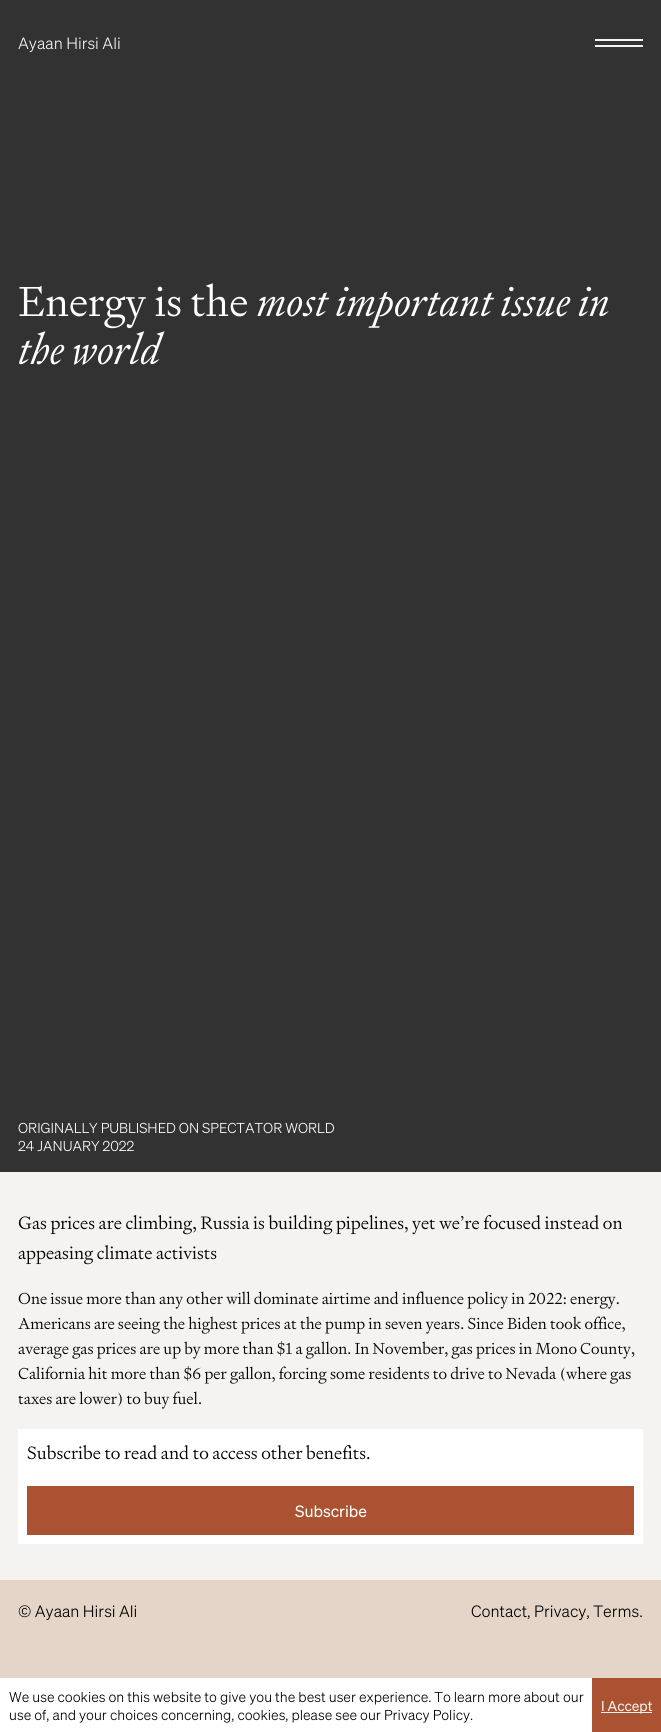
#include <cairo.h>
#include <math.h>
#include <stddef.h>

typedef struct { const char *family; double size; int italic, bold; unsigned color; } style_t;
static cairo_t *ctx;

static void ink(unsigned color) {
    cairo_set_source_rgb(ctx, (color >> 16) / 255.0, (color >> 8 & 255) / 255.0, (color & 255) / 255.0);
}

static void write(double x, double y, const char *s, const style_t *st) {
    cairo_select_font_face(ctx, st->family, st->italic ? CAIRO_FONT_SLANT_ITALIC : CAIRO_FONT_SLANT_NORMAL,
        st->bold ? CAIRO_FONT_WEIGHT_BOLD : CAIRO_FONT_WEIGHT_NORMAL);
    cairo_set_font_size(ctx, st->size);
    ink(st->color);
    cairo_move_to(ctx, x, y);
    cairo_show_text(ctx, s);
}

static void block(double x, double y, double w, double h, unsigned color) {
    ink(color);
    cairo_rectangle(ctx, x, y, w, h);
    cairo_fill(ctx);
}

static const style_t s1 = {"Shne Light", 16, 0, 0, 0xf5f3f2};
static const style_t s2 = {"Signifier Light", 42, 0, 0, 0xffffff};
static const style_t s3 = {"Signifier Light", 42, 1, 0, 0xffffff};
static const style_t s4 = {"Shne Light", 14, 0, 0, 0xffffff};
static const style_t s5 = {"Signifier Light", 18, 0, 0, 0x000000};
static const style_t s6 = {"Signifier Light", 16, 0, 0, 0x000000};
static const style_t s7 = {"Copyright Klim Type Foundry", 16, 0, 0, 0xffffff};
static const style_t s8 = {"Shne Light", 16, 0, 0, 0x000000};
static const style_t s9 = {"Shne Light", 14, 0, 0, 0x000000};
static const style_t s10 = {"Copyright Klim Type Foundry", 14, 0, 0, 0xf5f3f2};

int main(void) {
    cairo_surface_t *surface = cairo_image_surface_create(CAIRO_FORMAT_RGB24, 661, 1732);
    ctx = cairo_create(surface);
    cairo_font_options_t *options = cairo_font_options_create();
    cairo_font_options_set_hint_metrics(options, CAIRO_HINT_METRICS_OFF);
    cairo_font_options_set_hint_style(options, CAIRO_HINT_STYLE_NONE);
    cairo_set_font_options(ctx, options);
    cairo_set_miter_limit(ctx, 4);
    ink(0xe5d5c8);
    cairo_paint(ctx);
    block(0, 0, 661, 1172, 0x323232);
    write(18, 49, "Ayaan Hirsi Ali", &s1);
    block(595, 39, 48, 2, 0xf5f3f2);
    block(595, 45, 48, 2, 0xf5f3f2);
    write(18, 316, "Energy is the", &s2);
    write(257, 316, "most important issue in", &s3);
    write(18, 364, "the world", &s3);
    write(18, 1133, "ORIGINALLY PUBLISHED ON SPECTATOR WORLD", &s4);
    write(18, 1151, "24 JANUARY 2022", &s4);
    block(0, 1172, 661, 408, 0xf5f3f2);
    write(18, 1229, "Gas prices are climbing, Russia is building pipelines, yet we’re focused instead on", &s5);
    write(18, 1259, "appeasing climate activists", &s5);
    write(18, 1304, "One issue more than any other will dominate airtime and influence policy in 2022: energy.", &s6);
    write(18, 1329, "Americans are seeing the highest prices at the pump in seven years. Since Biden took office,", &s6);
    write(18, 1354, "average gas prices are up by more than $1 a gallon. In November, gas prices in Mono County,", &s6);
    write(18, 1379, "California hit more than $6 per gallon, forcing some residents to drive to Nevada (where gas", &s6);
    write(18, 1404, "taxes are lower) to buy fuel.", &s6);
    block(18, 1429, 625, 115, 0xffffff);
    write(27, 1459, "Subscribe to read and to access other benefits.", &s5);
    block(27, 1486, 607, 49, 0xaa5232);
    write(295, 1517, "Subscribe", &s7);
    write(18, 1617, "© Ayaan Hirsi Ali", &s8);
    write(471, 1617, "Contact, Privacy, Terms.", &s8);
    block(0, 1678, 592, 54, 0xffffff);
    write(9, 1702, "We use cookies on this website to give you the best user experience. To learn more about our", &s9);
    write(9, 1720, "use of, and your choices concerning, cookies, please see our Privacy Policy.", &s9);
    block(592, 1678, 69, 54, 0xaa5232);
    block(601, 1712, 51, 1, 0xf5f3f2);
    write(601, 1711, "I Accept", &s10);
    cairo_surface_write_to_png(surface, "screenshot.png");
    cairo_font_options_destroy(options);
    cairo_destroy(ctx);
    cairo_surface_destroy(surface);
    return 0;
}
